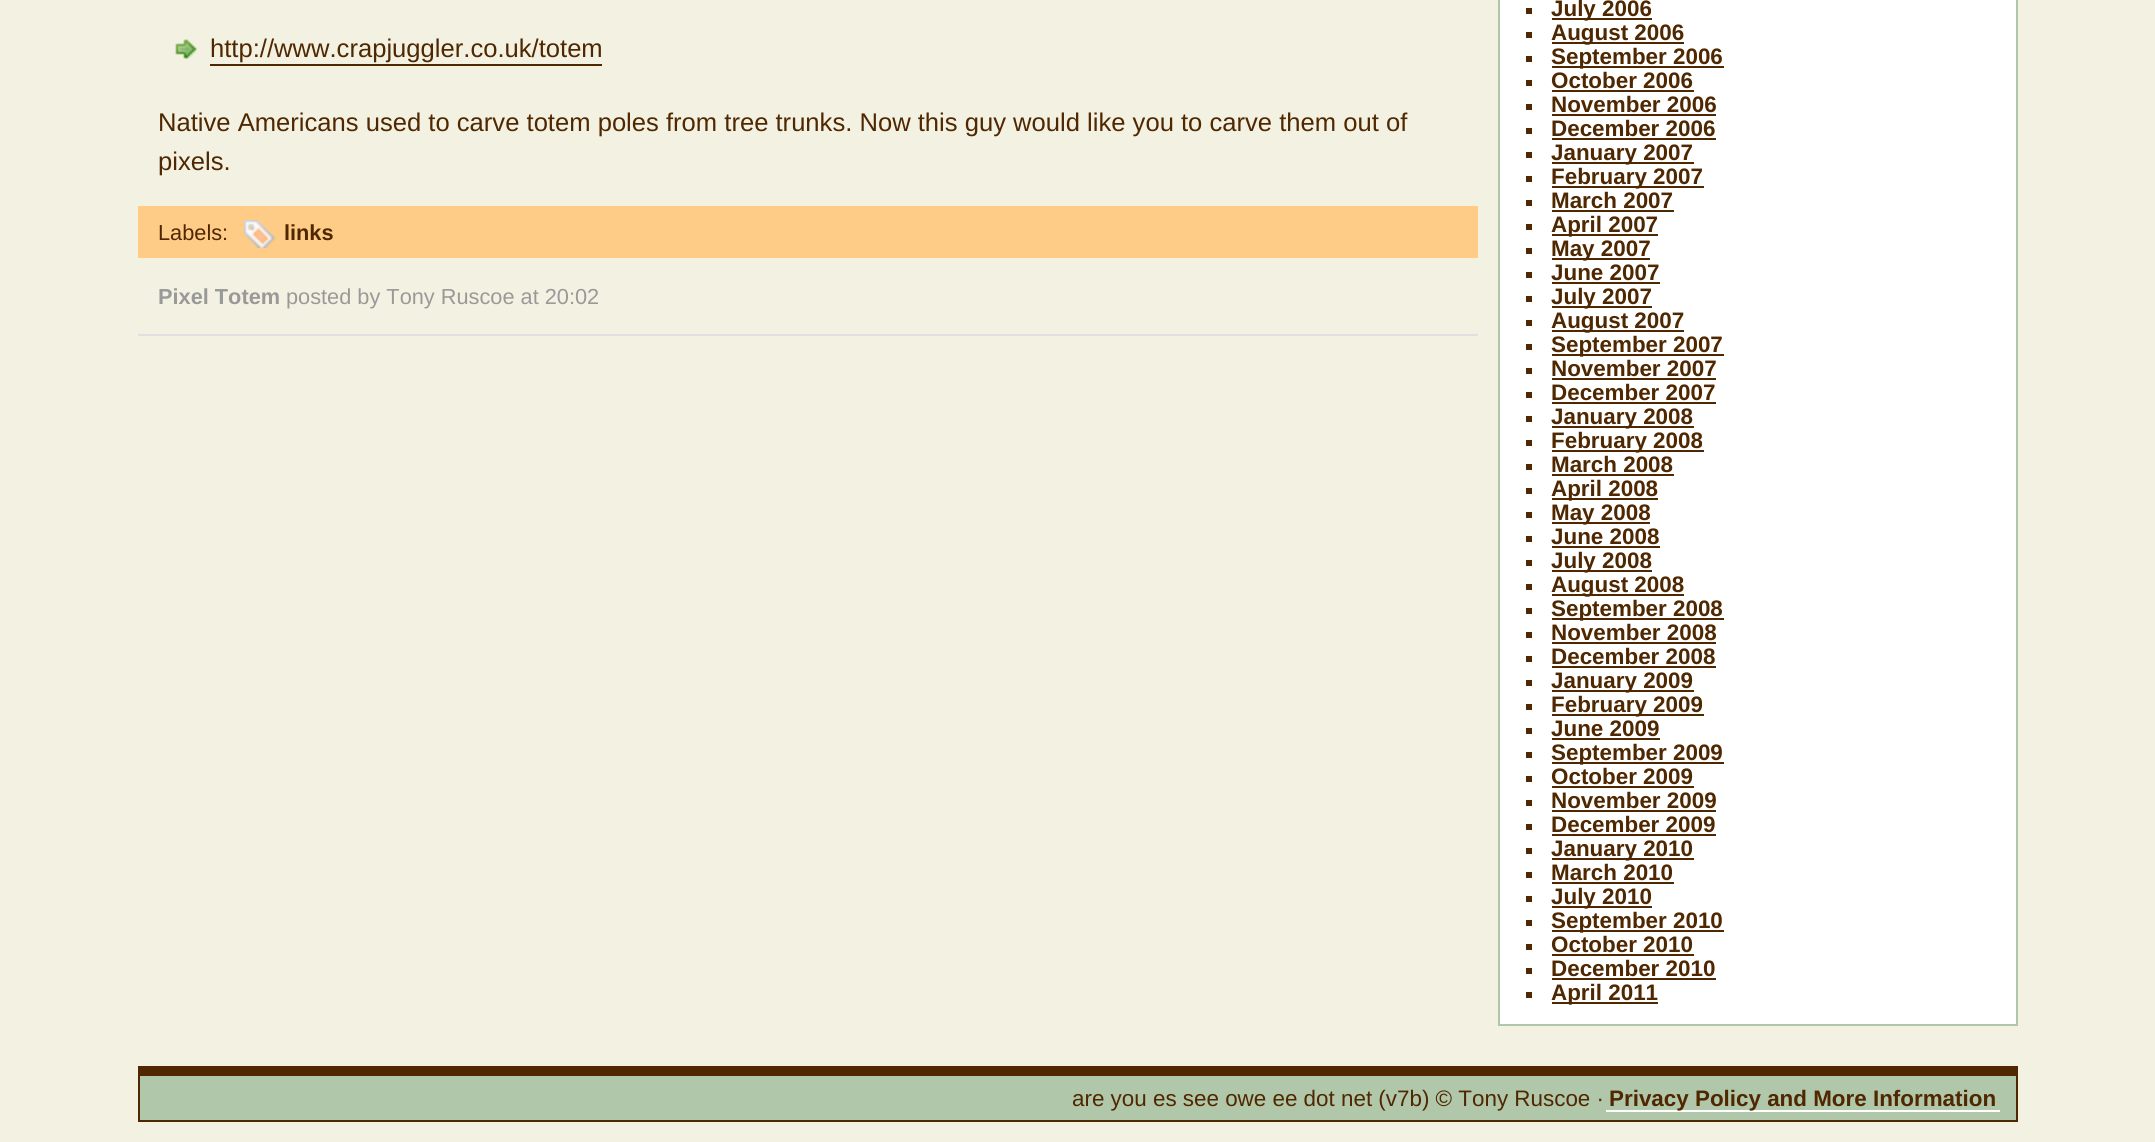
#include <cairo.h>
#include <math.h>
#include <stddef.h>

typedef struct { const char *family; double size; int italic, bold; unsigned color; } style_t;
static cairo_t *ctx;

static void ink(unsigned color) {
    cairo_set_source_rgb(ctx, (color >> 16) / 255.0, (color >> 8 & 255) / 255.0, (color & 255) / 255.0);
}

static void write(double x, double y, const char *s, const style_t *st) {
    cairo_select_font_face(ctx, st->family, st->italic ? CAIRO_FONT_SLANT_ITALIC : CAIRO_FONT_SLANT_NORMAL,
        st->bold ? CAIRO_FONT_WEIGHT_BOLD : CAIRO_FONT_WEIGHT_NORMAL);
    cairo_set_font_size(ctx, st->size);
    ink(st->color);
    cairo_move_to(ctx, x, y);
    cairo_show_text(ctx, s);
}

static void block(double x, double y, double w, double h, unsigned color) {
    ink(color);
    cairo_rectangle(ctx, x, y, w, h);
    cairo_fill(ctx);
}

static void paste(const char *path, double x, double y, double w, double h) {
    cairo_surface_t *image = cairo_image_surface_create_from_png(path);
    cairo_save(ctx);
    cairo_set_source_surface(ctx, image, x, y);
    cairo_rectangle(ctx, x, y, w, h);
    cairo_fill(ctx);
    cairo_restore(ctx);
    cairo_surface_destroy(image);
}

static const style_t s1 = {"Liberation Sans", 25.6, 0, 0, 0x4f2700};
static const style_t s2 = {"Liberation Sans", 21.75, 0, 0, 0x4f2700};
static const style_t s3 = {"Liberation Sans", 21.75, 0, 1, 0x4f2700};
static const style_t s4 = {"Liberation Sans", 21.75, 0, 1, 0x999999};
static const style_t s5 = {"Liberation Sans", 21.75, 0, 0, 0x999999};
static const style_t s6 = {"Liberation Sans", 22.4, 0, 1, 0x4f2700};
static const style_t s7 = {"Liberation Sans", 22.4, 0, 0, 0x4f2700};

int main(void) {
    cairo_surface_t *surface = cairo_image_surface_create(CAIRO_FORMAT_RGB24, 2155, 1142);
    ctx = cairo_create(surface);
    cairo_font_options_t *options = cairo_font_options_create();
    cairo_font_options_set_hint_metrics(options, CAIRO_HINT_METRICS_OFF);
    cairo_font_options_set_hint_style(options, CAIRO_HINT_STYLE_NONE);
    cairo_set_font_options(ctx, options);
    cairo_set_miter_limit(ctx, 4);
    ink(0xf3f2e2);
    cairo_paint(ctx);
    paste("pic1.png", 175, 39, 22, 20);
    write(210, 57, "http://www.crapjuggler.co.uk/totem", &s1);
    block(210, 64, 392, 2, 0x4f2700);
    write(158, 131, "Native Americans used to carve totem poles from tree trunks. Now this guy would like you to carve them out of", &s1);
    write(158, 170, "pixels.", &s1);
    block(138, 206, 1340, 52, 0xffcc88);
    write(158, 240, "Labels:", &s2);
    paste("pic2.png", 244, 220, 32, 28);
    write(284, 240, "links", &s3);
    write(158, 304, "Pixel Totem", &s4);
    write(286, 304, "posted by Tony Ruscoe at 20:02", &s5);
    block(138, 334, 1340, 2, 0xe0e0e0);
    block(1500, 0, 516, 1024, 0xffffff);
    block(2016, 0, 2, 1026, 0xb0c7aa);
    block(1498, 1024, 520, 2, 0xb0c7aa);
    block(1498, 0, 2, 1026, 0xb0c7aa);
    block(1526, 8, 6, 6, 0x4f2700);
    block(1552, 18, 100, 2, 0x4f2700);
    write(1551, 16, "July 2006", &s6);
    block(1526, 32, 6, 6, 0x4f2700);
    block(1552, 42, 132, 2, 0x4f2700);
    write(1551, 40, "August 2006", &s6);
    block(1526, 56, 6, 6, 0x4f2700);
    block(1552, 66, 172, 2, 0x4f2700);
    write(1551, 64, "September 2006", &s6);
    block(1526, 80, 6, 6, 0x4f2700);
    write(1551, 88, "October 2006", &s6);
    block(1552, 90, 142, 2, 0x4f2700);
    block(1526, 104, 6, 6, 0x4f2700);
    write(1551, 112, "November 2006", &s6);
    block(1552, 114, 164, 2, 0x4f2700);
    block(1526, 128, 6, 6, 0x4f2700);
    write(1551, 136, "December 2006", &s6);
    block(1552, 138, 164, 2, 0x4f2700);
    block(1526, 152, 6, 6, 0x4f2700);
    block(1552, 162, 142, 2, 0x4f2700);
    write(1551, 160, "January 2007", &s6);
    block(1526, 176, 6, 6, 0x4f2700);
    block(1552, 186, 152, 2, 0x4f2700);
    write(1551, 184, "February 2007", &s6);
    block(1526, 200, 6, 6, 0x4f2700);
    write(1551, 208, "March 2007", &s6);
    block(1552, 210, 122, 2, 0x4f2700);
    block(1526, 224, 6, 6, 0x4f2700);
    block(1552, 234, 106, 2, 0x4f2700);
    write(1551, 232, "April 2007", &s6);
    block(1526, 248, 6, 6, 0x4f2700);
    block(1552, 258, 98, 2, 0x4f2700);
    write(1551, 256, "May 2007", &s6);
    block(1526, 272, 6, 6, 0x4f2700);
    write(1551, 280, "June 2007", &s6);
    block(1552, 282, 108, 2, 0x4f2700);
    block(1526, 296, 6, 6, 0x4f2700);
    block(1552, 306, 100, 2, 0x4f2700);
    write(1551, 304, "July 2007", &s6);
    block(1526, 320, 6, 6, 0x4f2700);
    block(1552, 330, 132, 2, 0x4f2700);
    write(1551, 328, "August 2007", &s6);
    block(1526, 344, 6, 6, 0x4f2700);
    block(1552, 354, 172, 2, 0x4f2700);
    write(1551, 352, "September 2007", &s6);
    block(1526, 368, 6, 6, 0x4f2700);
    write(1551, 376, "November 2007", &s6);
    block(1552, 378, 164, 2, 0x4f2700);
    block(1526, 392, 6, 6, 0x4f2700);
    write(1551, 400, "December 2007", &s6);
    block(1552, 402, 164, 2, 0x4f2700);
    block(1526, 416, 6, 6, 0x4f2700);
    block(1552, 426, 142, 2, 0x4f2700);
    write(1551, 424, "January 2008", &s6);
    block(1526, 440, 6, 6, 0x4f2700);
    block(1552, 450, 152, 2, 0x4f2700);
    write(1551, 448, "February 2008", &s6);
    block(1526, 464, 6, 6, 0x4f2700);
    write(1551, 472, "March 2008", &s6);
    block(1552, 474, 122, 2, 0x4f2700);
    block(1526, 488, 6, 6, 0x4f2700);
    block(1552, 498, 106, 2, 0x4f2700);
    write(1551, 496, "April 2008", &s6);
    block(1526, 512, 6, 6, 0x4f2700);
    block(1552, 522, 98, 2, 0x4f2700);
    write(1551, 520, "May 2008", &s6);
    block(1526, 536, 6, 6, 0x4f2700);
    write(1551, 544, "June 2008", &s6);
    block(1552, 546, 108, 2, 0x4f2700);
    block(1526, 560, 6, 6, 0x4f2700);
    block(1552, 570, 100, 2, 0x4f2700);
    write(1551, 568, "July 2008", &s6);
    block(1526, 584, 6, 6, 0x4f2700);
    block(1552, 594, 132, 2, 0x4f2700);
    write(1551, 592, "August 2008", &s6);
    block(1526, 608, 6, 6, 0x4f2700);
    block(1552, 618, 172, 2, 0x4f2700);
    write(1551, 616, "September 2008", &s6);
    block(1526, 632, 6, 6, 0x4f2700);
    write(1551, 640, "November 2008", &s6);
    block(1552, 642, 164, 2, 0x4f2700);
    block(1526, 656, 6, 6, 0x4f2700);
    write(1551, 664, "December 2008", &s6);
    block(1552, 666, 164, 2, 0x4f2700);
    block(1526, 680, 6, 6, 0x4f2700);
    block(1552, 690, 142, 2, 0x4f2700);
    write(1551, 688, "January 2009", &s6);
    block(1526, 704, 6, 6, 0x4f2700);
    block(1552, 714, 152, 2, 0x4f2700);
    write(1551, 712, "February 2009", &s6);
    block(1526, 728, 6, 6, 0x4f2700);
    write(1551, 736, "June 2009", &s6);
    block(1552, 738, 108, 2, 0x4f2700);
    block(1526, 752, 6, 6, 0x4f2700);
    block(1552, 762, 172, 2, 0x4f2700);
    write(1551, 760, "September 2009", &s6);
    block(1526, 776, 6, 6, 0x4f2700);
    write(1551, 784, "October 2009", &s6);
    block(1552, 786, 142, 2, 0x4f2700);
    block(1526, 800, 6, 6, 0x4f2700);
    write(1551, 808, "November 2009", &s6);
    block(1552, 810, 164, 2, 0x4f2700);
    block(1526, 824, 6, 6, 0x4f2700);
    write(1551, 832, "December 2009", &s6);
    block(1552, 834, 164, 2, 0x4f2700);
    block(1526, 848, 6, 6, 0x4f2700);
    block(1552, 858, 142, 2, 0x4f2700);
    write(1551, 856, "January 2010", &s6);
    block(1526, 872, 6, 6, 0x4f2700);
    write(1551, 880, "March 2010", &s6);
    block(1552, 882, 122, 2, 0x4f2700);
    block(1526, 896, 6, 6, 0x4f2700);
    block(1552, 906, 100, 2, 0x4f2700);
    write(1551, 904, "July 2010", &s6);
    block(1526, 920, 6, 6, 0x4f2700);
    block(1552, 930, 172, 2, 0x4f2700);
    write(1551, 928, "September 2010", &s6);
    block(1526, 944, 6, 6, 0x4f2700);
    write(1551, 952, "October 2010", &s6);
    block(1552, 954, 142, 2, 0x4f2700);
    block(1526, 968, 6, 6, 0x4f2700);
    write(1551, 976, "December 2010", &s6);
    block(1552, 978, 164, 2, 0x4f2700);
    block(1526, 992, 6, 6, 0x4f2700);
    block(1552, 1002, 106, 2, 0x4f2700);
    write(1551, 1000, "April 2011", &s6);
    block(140, 1076, 1876, 44, 0xb0c7aa);
    block(140, 1066, 1876, 10, 0x4f2700);
    block(2016, 1066, 2, 56, 0x4f2700);
    block(138, 1120, 1880, 2, 0x4f2700);
    block(138, 1066, 2, 56, 0x4f2700);
    write(1072, 1106, "are you es see owe ee dot net (v7b) © Tony Ruscoe ·", &s7);
    block(1606, 1110, 394, 2, 0xffffff);
    write(1609, 1106, "Privacy Policy and More Information", &s6);
    cairo_surface_write_to_png(surface, "screenshot.png");
    cairo_font_options_destroy(options);
    cairo_destroy(ctx);
    cairo_surface_destroy(surface);
    return 0;
}
